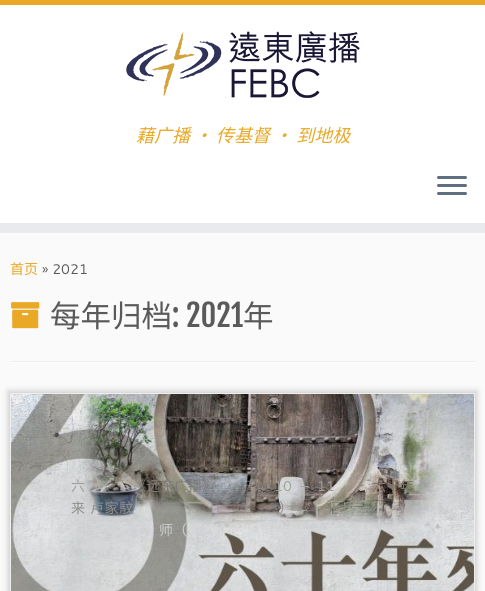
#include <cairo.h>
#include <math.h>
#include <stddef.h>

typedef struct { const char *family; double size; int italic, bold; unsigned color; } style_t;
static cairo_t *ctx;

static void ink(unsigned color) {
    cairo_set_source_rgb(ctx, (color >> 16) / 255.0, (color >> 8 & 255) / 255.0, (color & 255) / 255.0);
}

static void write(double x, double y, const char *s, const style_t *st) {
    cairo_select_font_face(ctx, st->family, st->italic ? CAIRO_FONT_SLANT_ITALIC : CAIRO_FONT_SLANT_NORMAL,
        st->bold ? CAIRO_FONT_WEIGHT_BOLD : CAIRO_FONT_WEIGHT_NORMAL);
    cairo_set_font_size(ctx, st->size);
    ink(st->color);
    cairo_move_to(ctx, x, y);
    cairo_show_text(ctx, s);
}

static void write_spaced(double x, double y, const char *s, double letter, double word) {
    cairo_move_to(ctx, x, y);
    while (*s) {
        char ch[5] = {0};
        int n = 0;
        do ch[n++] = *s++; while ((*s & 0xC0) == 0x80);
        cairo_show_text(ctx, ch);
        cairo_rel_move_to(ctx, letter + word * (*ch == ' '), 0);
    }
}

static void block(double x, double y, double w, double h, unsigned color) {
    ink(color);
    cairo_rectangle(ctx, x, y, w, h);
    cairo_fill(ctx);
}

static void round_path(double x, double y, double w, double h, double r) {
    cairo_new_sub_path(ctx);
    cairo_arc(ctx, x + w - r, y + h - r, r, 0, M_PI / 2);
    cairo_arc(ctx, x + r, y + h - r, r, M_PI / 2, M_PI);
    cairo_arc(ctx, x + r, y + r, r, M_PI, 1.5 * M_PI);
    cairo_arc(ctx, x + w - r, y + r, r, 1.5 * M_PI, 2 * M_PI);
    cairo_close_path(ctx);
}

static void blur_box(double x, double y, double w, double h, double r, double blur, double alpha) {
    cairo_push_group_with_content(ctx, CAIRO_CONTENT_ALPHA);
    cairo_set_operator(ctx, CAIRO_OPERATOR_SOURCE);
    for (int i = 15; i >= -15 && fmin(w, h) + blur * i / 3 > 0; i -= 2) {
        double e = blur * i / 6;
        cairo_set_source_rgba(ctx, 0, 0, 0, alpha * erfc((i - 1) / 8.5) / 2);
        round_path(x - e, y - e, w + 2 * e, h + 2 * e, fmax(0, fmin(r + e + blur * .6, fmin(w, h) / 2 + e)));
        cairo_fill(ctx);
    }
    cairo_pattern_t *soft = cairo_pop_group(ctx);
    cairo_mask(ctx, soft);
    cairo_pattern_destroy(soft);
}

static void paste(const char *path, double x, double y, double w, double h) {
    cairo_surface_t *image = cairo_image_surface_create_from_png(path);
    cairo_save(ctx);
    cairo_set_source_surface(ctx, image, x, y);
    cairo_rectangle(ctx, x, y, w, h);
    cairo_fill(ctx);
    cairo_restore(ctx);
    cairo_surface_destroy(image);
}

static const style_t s1 = {"Noto Sans CJK SC", 18, 1, 0, 0xe9a825};
static const style_t s2 = {"Noto Sans CJK SC", 14, 0, 0, 0xe9a825};
static const style_t s3 = {"Cantarell", 14, 0, 0, 0x5a5a5a};
static const style_t s4 = {"Noto Sans CJK SC", 30.5, 0, 0, 0x5a5a5a};
static const style_t s5 = {"Fjalla One", 30.5, 0, 0, 0x5a5a5a};
static const style_t s6 = {"Noto Sans CJK SC", 14, 0, 0, 0xa0a09d};
static const style_t s7 = {"Noto Sans CJK SC", 14, 0, 0, 0x7d7b77};
static const style_t s8 = {"Noto Sans CJK SC", 14, 0, 0, 0x7d7669};
static const style_t s9 = {"Noto Sans CJK SC", 14, 0, 0, 0xcccdce};

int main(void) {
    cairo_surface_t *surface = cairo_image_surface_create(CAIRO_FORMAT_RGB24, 485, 591);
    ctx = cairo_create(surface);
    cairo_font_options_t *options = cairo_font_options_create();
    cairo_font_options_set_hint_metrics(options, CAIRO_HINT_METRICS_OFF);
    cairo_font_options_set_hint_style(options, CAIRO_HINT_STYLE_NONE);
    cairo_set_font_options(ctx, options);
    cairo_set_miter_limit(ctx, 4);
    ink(0xfafafa);
    cairo_paint(ctx);
    block(0, 5, 485, 218, 0xffffff);
    block(0, 0, 485, 5, 0xe9a825);
    block(0, 223, 485, 10, 0xe9eaee);
    paste("pic1.png", 126, 31, 234, 67);
    write(136, 142, "藉广播 ‧ 传基督 ‧ 到地极", &s1);
    ink(0x5f6f81);
    round_path(437, 176, 30, 3, 1.5);
    cairo_fill(ctx);
    round_path(437, 184, 30, 3, 1.5);
    cairo_fill(ctx);
    round_path(437, 192, 30, 3, 1.5);
    cairo_fill(ctx);
    write(10, 274, "首页", &s2);
    write(42, 274, "» 2021", &s3);
    paste("pic2.png", 11, 302, 29, 27);
    write(50, 327, "每年归档", &s4);
    write(172, 327, ": 2021", &s5);
    write(243, 327, "年", &s4);
    block(10, 361, 465, 1, 0xeeeeee);
    block(10, 362, 465, 1, 0xffffff);
    ink(0xcccccc);
    blur_box(8, 391, 469, 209, 0, 3, 1);
    block(10, 393, 465, 1, 0xeeeeee);
    cairo_new_path(ctx);
    cairo_move_to(ctx, 475, 393);
    cairo_line_to(ctx, 475, 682);
    cairo_line_to(ctx, 474, 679);
    cairo_line_to(ctx, 474, 394);
    cairo_close_path(ctx);
    cairo_fill(ctx);
    cairo_new_path(ctx);
    cairo_move_to(ctx, 10, 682);
    cairo_line_to(ctx, 10, 393);
    cairo_line_to(ctx, 11, 394);
    cairo_line_to(ctx, 11, 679);
    cairo_close_path(ctx);
    cairo_fill(ctx);
    paste("pic3.png", 11, 394, 463, 197);
    write(71, 491, "六", &s6);
    write(132, 491, "《远东广播》", &s7);
    cairo_select_font_face(ctx, "Cantarell", CAIRO_FONT_SLANT_NORMAL, CAIRO_FONT_WEIGHT_NORMAL);
    ink(0xa0a09d);
    write_spaced(274, 491, "10  –  11", 0, 0.5);
    write(372, 491, "六十年", &s8);
    ink(0x8f8e8c);
    write_spaced(71, 513, "来 卢家馼", 0.5, 1);
    write_spaced(279, 513, "）", 0.5, 1);
    write(159, 535, "师（", &s9);
    cairo_surface_write_to_png(surface, "screenshot.png");
    cairo_font_options_destroy(options);
    cairo_destroy(ctx);
    cairo_surface_destroy(surface);
    return 0;
}
